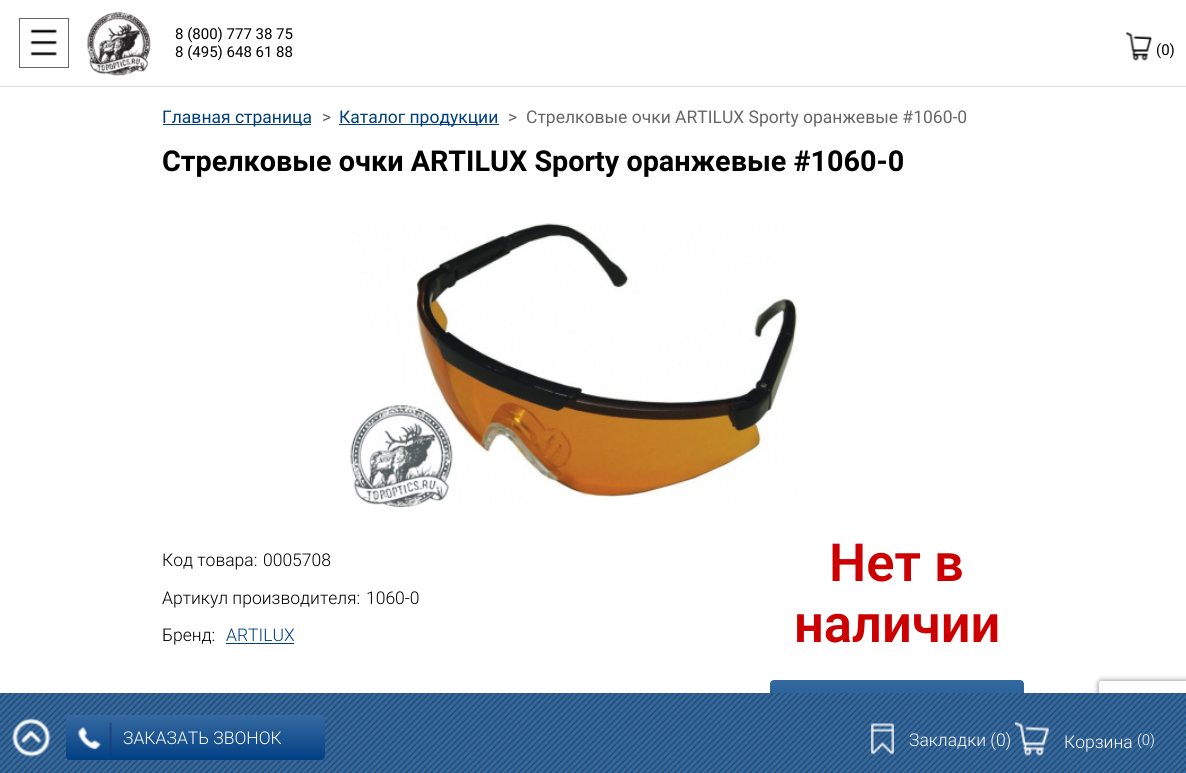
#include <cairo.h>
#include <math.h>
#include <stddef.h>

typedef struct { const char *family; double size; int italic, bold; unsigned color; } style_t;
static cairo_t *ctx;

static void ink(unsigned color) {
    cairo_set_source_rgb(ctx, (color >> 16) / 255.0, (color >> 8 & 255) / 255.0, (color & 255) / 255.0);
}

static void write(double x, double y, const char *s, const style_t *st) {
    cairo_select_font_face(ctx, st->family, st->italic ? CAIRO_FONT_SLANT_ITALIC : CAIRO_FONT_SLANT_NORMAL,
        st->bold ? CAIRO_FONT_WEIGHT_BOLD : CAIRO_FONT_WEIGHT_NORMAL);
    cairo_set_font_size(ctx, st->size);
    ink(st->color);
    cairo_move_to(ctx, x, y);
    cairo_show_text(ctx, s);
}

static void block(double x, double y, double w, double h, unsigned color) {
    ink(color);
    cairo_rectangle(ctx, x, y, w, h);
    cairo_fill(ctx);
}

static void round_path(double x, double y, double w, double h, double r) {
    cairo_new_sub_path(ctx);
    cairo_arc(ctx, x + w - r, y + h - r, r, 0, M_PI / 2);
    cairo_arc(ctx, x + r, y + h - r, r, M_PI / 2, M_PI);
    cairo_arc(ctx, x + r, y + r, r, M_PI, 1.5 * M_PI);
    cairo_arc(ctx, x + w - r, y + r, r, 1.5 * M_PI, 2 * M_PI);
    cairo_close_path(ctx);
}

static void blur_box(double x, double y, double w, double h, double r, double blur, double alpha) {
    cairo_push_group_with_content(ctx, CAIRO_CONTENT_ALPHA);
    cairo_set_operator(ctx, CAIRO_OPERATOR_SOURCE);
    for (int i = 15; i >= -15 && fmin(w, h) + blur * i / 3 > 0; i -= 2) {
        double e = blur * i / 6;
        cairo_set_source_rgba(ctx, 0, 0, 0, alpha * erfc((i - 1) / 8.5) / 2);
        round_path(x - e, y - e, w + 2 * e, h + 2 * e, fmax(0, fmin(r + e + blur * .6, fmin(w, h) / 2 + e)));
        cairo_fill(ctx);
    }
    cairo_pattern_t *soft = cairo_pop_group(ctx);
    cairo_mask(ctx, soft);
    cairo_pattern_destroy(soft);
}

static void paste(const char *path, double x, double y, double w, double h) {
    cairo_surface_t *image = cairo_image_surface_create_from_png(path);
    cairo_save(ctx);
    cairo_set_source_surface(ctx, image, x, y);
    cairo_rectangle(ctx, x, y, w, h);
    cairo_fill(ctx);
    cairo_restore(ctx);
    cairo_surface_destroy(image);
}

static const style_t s1 = {"Roboto", 15, 0, 0, 0x000000};
static const style_t s2 = {"Roboto", 17.5, 0, 0, 0x003e7e};
static const style_t s3 = {"Roboto", 17.5, 0, 0, 0x666666};
static const style_t s4 = {"Roboto", 28.75, 0, 1, 0x000000};
static const style_t s5 = {"Roboto Light", 17.5, 0, 0, 0x000000};
static const style_t s6 = {"Roboto Light", 17.5, 0, 0, 0x003e7e};
static const style_t s7 = {"Roboto SemiBold", 52.5, 0, 0, 0xcc0000};
static const style_t s8 = {"Roboto Light", 17.5, 0, 0, 0xffffff};
static const style_t s9 = {"Roboto Light", 15, 0, 0, 0xffffff};

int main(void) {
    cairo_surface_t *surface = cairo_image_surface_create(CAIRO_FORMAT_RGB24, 1186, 773);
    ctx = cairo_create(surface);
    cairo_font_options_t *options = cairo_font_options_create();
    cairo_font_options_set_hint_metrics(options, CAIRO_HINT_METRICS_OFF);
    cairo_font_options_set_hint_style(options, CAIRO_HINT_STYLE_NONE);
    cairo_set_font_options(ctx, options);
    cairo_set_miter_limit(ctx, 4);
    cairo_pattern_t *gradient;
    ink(0xffffff);
    cairo_paint(ctx);
    block(0, 86, 1186, 1, 0xdedede);
    paste("pic1.png", 30, 29, 27, 27);
    cairo_rectangle(ctx, 19.5, 18.5, 49, 49);
    ink(0x666666);
    cairo_set_line_width(ctx, 1);
    cairo_stroke(ctx);
    paste("pic2.png", 86, 12, 65, 64);
    write(175, 39, "8 (800) 777 38 75", &s1);
    write(175, 57, "8 (495) 648 61 88", &s1);
    paste("pic3.png", 1125, 32, 27, 29);
    write(1156, 55, "(0)", &s1);
    block(163, 124, 148, 1, 0x003e7e);
    write(162, 123, "Главная страница", &s2);
    write(322, 123, ">", &s3);
    block(339, 124, 160, 1, 0x003e7e);
    write(339, 123, "Каталог продукции", &s2);
    write(508, 123, ">", &s3);
    write(526, 123, "Стрелковые очки ARTILUX Sporty оранжевые #1060-0", &s3);
    write(162, 171, "Стрелковые очки ARTILUX Sporty оранжевые #1060-0", &s4);
    paste("pic4.png", 350, 223, 449, 284);
    write(162, 566, "Код товара:", &s5);
    write(263, 566, "0005708", &s5);
    write(162, 604, "Артикул производителя:", &s5);
    write(366, 604, "1060-0", &s5);
    write(162, 641, "Бренд:", &s5);
    write(226, 641, "ARTILUX", &s6);
    block(226, 643, 68, 1, 0x003e7e);
    write(829, 581, "Нет в", &s7);
    write(794, 642, "наличии", &s7);
    gradient = cairo_pattern_create_linear(897, 680, 897, 755);
    cairo_pattern_add_color_stop_rgba(gradient, 0, 0.208, 0.416, 0.627, 1);
    cairo_pattern_add_color_stop_rgba(gradient, 0.5, 0.11, 0.333, 0.573, 1);
    cairo_pattern_add_color_stop_rgba(gradient, 1, 0.004, 0.247, 0.518, 1);
    cairo_set_source(ctx, gradient);
    cairo_pattern_destroy(gradient);
    round_path(770, 680, 254, 75, 4);
    cairo_fill(ctx);
    cairo_save(ctx);
    cairo_set_fill_rule(ctx, CAIRO_FILL_RULE_EVEN_ODD);
    cairo_new_path(ctx);
    cairo_move_to(ctx, 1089, 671);
    cairo_line_to(ctx, 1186, 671);
    cairo_line_to(ctx, 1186, 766);
    cairo_line_to(ctx, 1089, 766);
    cairo_close_path(ctx);
    cairo_move_to(ctx, 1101.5, 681);
    cairo_line_to(ctx, 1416.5, 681);
    cairo_curve_to(ctx, 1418, 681, 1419, 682, 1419, 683.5);
    cairo_line_to(ctx, 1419, 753.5);
    cairo_curve_to(ctx, 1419, 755, 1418, 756, 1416.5, 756);
    cairo_line_to(ctx, 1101.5, 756);
    cairo_curve_to(ctx, 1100, 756, 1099, 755, 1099, 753.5);
    cairo_line_to(ctx, 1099, 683.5);
    cairo_curve_to(ctx, 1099, 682, 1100, 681, 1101.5, 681);
    cairo_close_path(ctx);
    cairo_clip(ctx);
    ink(0x808080);
    blur_box(1099, 681, 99, 75, 2.5, 3, 1);
    cairo_restore(ctx);
    paste("pic5.png", 0, 693, 1186, 80);
    paste("pic6.png", 12, 718, 39, 39);
    gradient = cairo_pattern_create_linear(196, 715, 196, 760);
    cairo_pattern_add_color_stop_rgba(gradient, 0, 0.208, 0.416, 0.627, 1);
    cairo_pattern_add_color_stop_rgba(gradient, 0.5, 0.11, 0.333, 0.573, 1);
    cairo_pattern_add_color_stop_rgba(gradient, 1, 0.004, 0.247, 0.518, 1);
    cairo_set_source(ctx, gradient);
    cairo_pattern_destroy(gradient);
    round_path(66, 715, 259, 45, 4);
    cairo_fill(ctx);
    paste("pic7.png", 78, 722, 34, 33);
    write(123, 744, "ЗАКАЗАТЬ ЗВОНОК", &s8);
    paste("pic8.png", 871, 723, 23, 32);
    write(909, 746, "Закладки (0)", &s8);
    paste("pic9.png", 1015, 722, 34, 34);
    write(1064, 748, "Корзина", &s8);
    write(1137, 745, "(0)", &s9);
    cairo_surface_write_to_png(surface, "screenshot.png");
    cairo_font_options_destroy(options);
    cairo_destroy(ctx);
    cairo_surface_destroy(surface);
    return 0;
}
